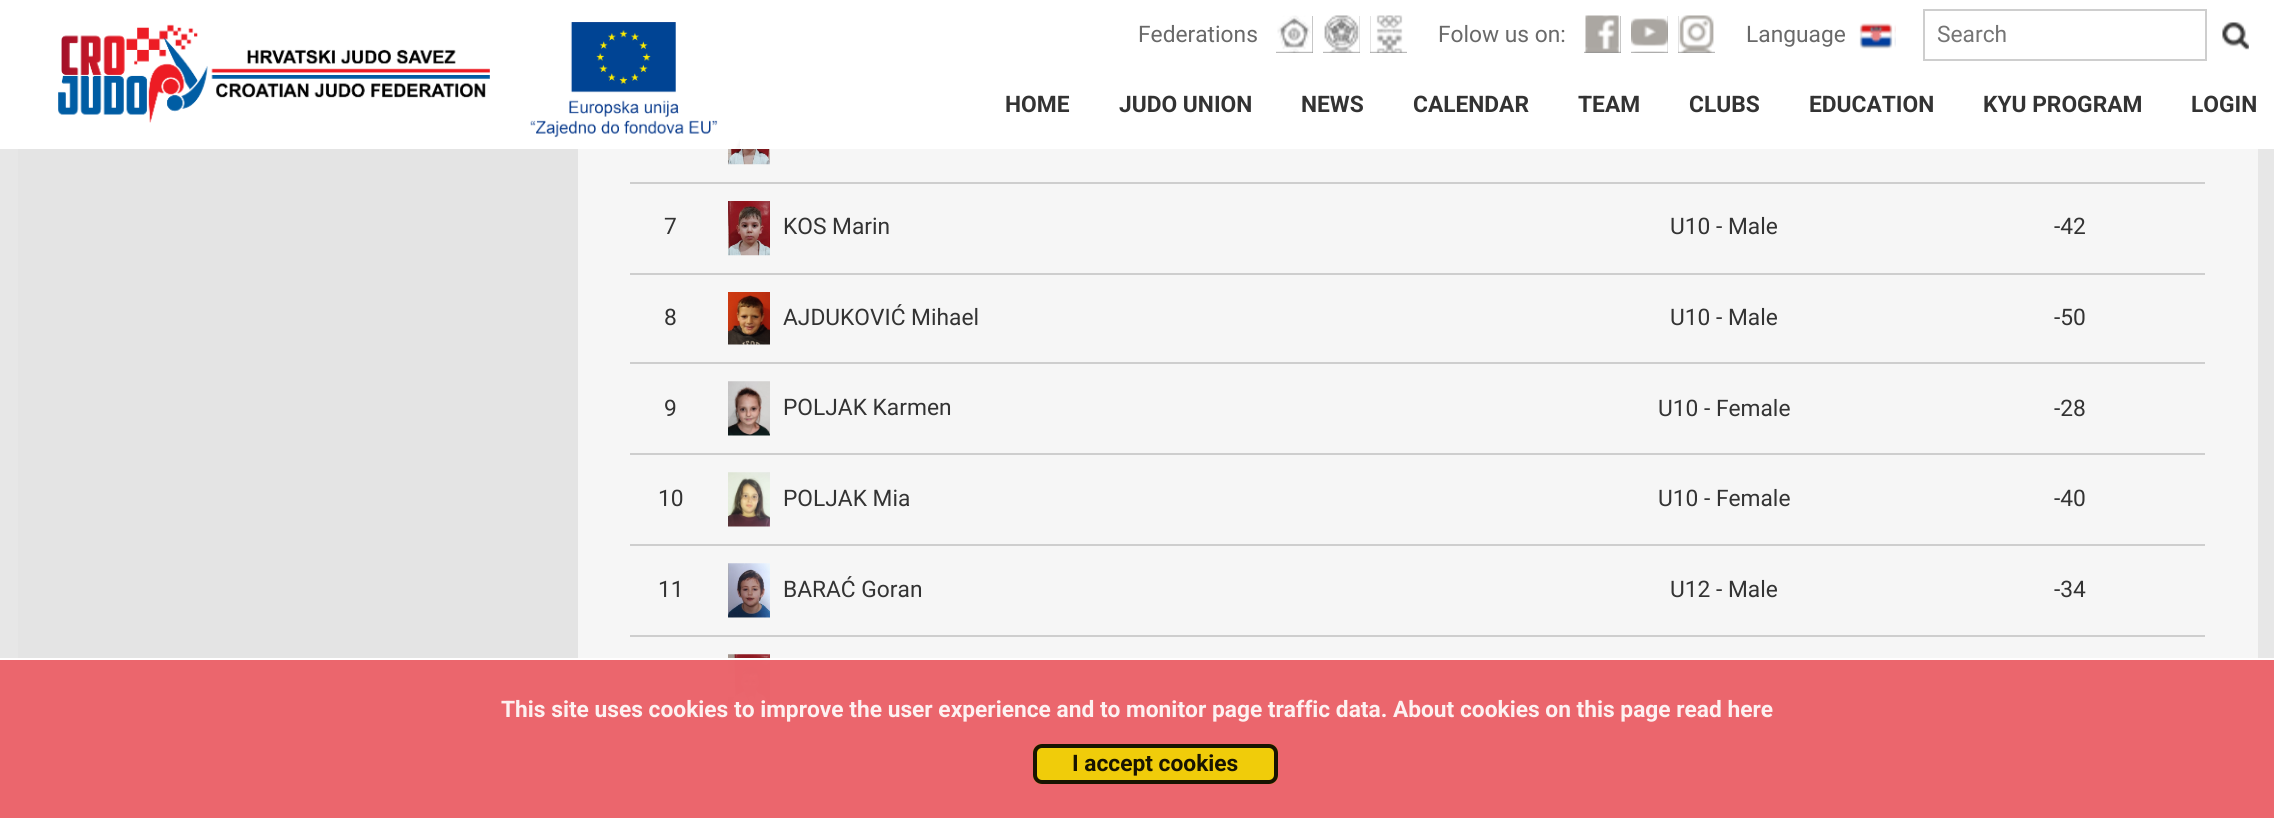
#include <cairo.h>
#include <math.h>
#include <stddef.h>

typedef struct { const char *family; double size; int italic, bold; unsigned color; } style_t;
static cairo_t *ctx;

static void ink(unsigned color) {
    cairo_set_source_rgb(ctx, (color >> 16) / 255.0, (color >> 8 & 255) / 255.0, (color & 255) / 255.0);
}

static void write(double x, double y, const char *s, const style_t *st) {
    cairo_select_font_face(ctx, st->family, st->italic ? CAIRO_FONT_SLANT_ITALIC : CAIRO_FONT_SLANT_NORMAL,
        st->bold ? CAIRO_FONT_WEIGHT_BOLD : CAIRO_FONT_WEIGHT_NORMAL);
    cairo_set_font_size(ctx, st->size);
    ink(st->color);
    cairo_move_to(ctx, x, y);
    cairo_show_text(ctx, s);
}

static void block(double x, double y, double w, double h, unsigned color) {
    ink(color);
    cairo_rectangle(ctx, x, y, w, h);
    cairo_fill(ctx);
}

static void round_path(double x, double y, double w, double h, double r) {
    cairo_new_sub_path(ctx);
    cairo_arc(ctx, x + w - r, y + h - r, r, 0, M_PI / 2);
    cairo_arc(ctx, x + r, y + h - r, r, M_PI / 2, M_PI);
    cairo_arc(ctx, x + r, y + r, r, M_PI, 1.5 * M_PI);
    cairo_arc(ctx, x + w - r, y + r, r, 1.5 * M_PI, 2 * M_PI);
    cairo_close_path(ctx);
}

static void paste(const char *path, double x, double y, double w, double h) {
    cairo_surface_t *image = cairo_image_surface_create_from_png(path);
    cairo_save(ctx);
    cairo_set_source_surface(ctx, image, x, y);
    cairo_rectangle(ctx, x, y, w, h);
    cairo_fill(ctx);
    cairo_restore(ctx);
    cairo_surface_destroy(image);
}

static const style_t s1 = {"Roboto", 22.75, 0, 0, 0x696969};
static const style_t s2 = {"Roboto", 22.75, 0, 0, 0x757575};
static const style_t s3 = {"Roboto", 22.75, 0, 1, 0x333333};
static const style_t s4 = {"Roboto", 22.75, 0, 0, 0x333333};
static const style_t s5 = {"Roboto", 22.75, 0, 1, 0xfdf1f1};
static const style_t s6 = {"Roboto", 22.75, 0, 1, 0x181401};

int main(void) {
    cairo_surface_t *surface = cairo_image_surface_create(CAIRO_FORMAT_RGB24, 2274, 818);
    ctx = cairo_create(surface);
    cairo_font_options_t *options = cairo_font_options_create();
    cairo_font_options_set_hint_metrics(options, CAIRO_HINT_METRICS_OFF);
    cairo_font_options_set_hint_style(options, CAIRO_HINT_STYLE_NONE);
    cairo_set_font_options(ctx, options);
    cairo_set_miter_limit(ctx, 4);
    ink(0xe7e7e7);
    cairo_paint(ctx);
    block(0, 660, 2274, 158, 0xeb666d);
    block(0, 0, 2274, 149, 0xffffff);
    paste("pic1.png", 58, 24, 432, 99);
    paste("pic2.png", 530, 22, 210, 127);
    write(1138, 42, "Federations", &s1);
    block(1276, 16, 37, 37, 0x8f8f8f);
    paste("pic3.png", 1276, 15, 37, 38);
    block(1323, 16, 37, 37, 0x8f8f8f);
    paste("pic4.png", 1323, 15, 37, 38);
    block(1370, 16, 37, 37, 0x8f8f8f);
    paste("pic5.png", 1370, 15, 37, 38);
    write(1438, 42, "Folow us on:", &s1);
    block(1584, 16, 37, 37, 0x8f8f8f);
    paste("pic6.png", 1584, 15, 37, 38);
    block(1631, 16, 37, 37, 0x8f8f8f);
    paste("pic7.png", 1631, 16, 37, 37);
    block(1678, 16, 37, 37, 0x8f8f8f);
    paste("pic8.png", 1678, 15, 37, 38);
    write(1746, 42, "Language", &s1);
    paste("pic9.png", 1859, 23, 37, 26);
    cairo_rectangle(ctx, 1924, 10, 282, 50);
    ink(0xcecece);
    cairo_stroke(ctx);
    write(1937, 42, "Search", &s2);
    paste("pic10.png", 2222, 22, 27, 28);
    write(1005, 112, "HOME", &s3);
    write(1119, 112, "JUDO UNION", &s3);
    write(1301, 112, "NEWS", &s3);
    write(1413, 112, "CALENDAR", &s3);
    write(1578, 112, "TEAM", &s3);
    write(1689, 112, "CLUBS", &s3);
    write(1809, 112, "EDUCATION", &s3);
    write(1983, 112, "KYU PROGRAM", &s3);
    write(2191, 112, "LOGIN", &s3);
    block(578, 149, 1680, 509, 0xf6f6f6);
    block(18, 149, 560, 509, 0xe4e4e4);
    block(630, 182, 1575, 2, 0xcecece);
    paste("pic11.png", 728, 149, 42, 16);
    block(630, 273, 1575, 2, 0xcecece);
    write(664, 234, "7", &s4);
    paste("pic12.png", 728, 201, 42, 55);
    write(783, 234, "KOS Marin", &s4);
    write(1670, 234, "U10 - Male", &s4);
    write(2054, 234, "-42", &s4);
    block(630, 362, 1575, 2, 0xcecece);
    write(664, 325, "8", &s4);
    paste("pic13.png", 728, 292, 42, 53);
    write(783, 325, "AJDUKOVIĆ Mihael", &s4);
    write(1670, 325, "U10 - Male", &s4);
    write(2054, 325, "-50", &s4);
    block(630, 453, 1575, 2, 0xcecece);
    write(664, 416, "9", &s4);
    paste("pic14.png", 728, 381, 42, 55);
    write(783, 415, "POLJAK Karmen", &s4);
    write(1658, 416, "U10 - Female", &s4);
    write(2054, 416, "-28", &s4);
    block(630, 544, 1575, 2, 0xcecece);
    write(658, 506, "10", &s4);
    paste("pic15.png", 728, 472, 42, 55);
    write(783, 506, "POLJAK Mia", &s4);
    write(1658, 506, "U10 - Female", &s4);
    write(2054, 506, "-40", &s4);
    block(630, 635, 1575, 2, 0xcecece);
    write(658, 597, "11", &s4);
    paste("pic16.png", 728, 563, 42, 55);
    write(783, 597, "BARAĆ Goran", &s4);
    write(1670, 597, "U12 - Male", &s4);
    write(2054, 597, "-34", &s4);
    paste("pic17.png", 728, 654, 42, 55);
    ink(0xec7164);
    round_path(1035, 746, 241, 36, 7);
    cairo_fill_preserve(ctx);
    ink(0xd65d64);
    cairo_set_line_width(ctx, 4);
    cairo_stroke(ctx);
    block(0, 658, 2274, 2, 0xfffefe);
    write(501, 717, "This site uses cookies to improve the user experience and to monitor page traffic data. About cookies on this page read here", &s5);
    cairo_set_source_rgba(ctx, 0.945, 0.839, 0, 0.9);
    round_path(1033, 744, 245, 40, 9);
    cairo_fill(ctx);
    round_path(1035, 746, 241, 36, 7);
    cairo_set_source_rgba(ctx, 0, 0, 0, 0.9);
    cairo_stroke(ctx);
    write(1072, 771, "I accept cookies", &s6);
    cairo_surface_write_to_png(surface, "screenshot.png");
    cairo_font_options_destroy(options);
    cairo_destroy(ctx);
    cairo_surface_destroy(surface);
    return 0;
}
